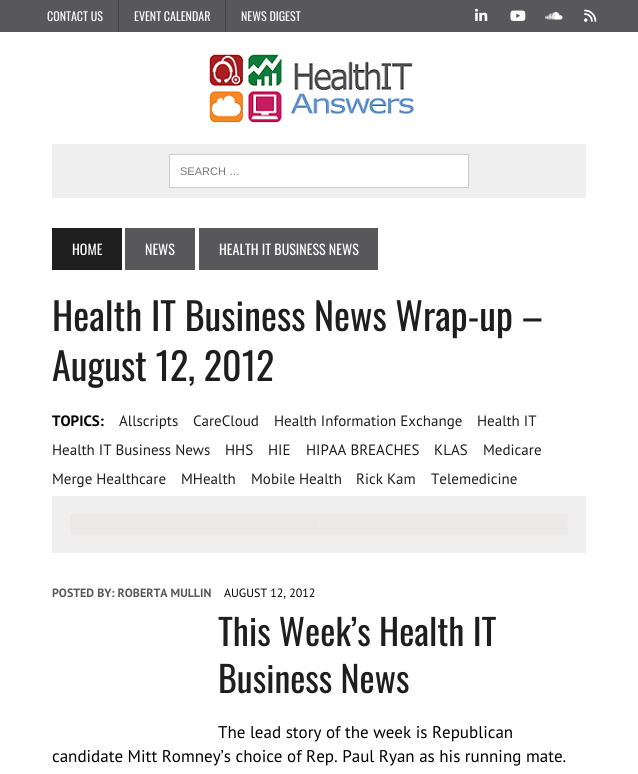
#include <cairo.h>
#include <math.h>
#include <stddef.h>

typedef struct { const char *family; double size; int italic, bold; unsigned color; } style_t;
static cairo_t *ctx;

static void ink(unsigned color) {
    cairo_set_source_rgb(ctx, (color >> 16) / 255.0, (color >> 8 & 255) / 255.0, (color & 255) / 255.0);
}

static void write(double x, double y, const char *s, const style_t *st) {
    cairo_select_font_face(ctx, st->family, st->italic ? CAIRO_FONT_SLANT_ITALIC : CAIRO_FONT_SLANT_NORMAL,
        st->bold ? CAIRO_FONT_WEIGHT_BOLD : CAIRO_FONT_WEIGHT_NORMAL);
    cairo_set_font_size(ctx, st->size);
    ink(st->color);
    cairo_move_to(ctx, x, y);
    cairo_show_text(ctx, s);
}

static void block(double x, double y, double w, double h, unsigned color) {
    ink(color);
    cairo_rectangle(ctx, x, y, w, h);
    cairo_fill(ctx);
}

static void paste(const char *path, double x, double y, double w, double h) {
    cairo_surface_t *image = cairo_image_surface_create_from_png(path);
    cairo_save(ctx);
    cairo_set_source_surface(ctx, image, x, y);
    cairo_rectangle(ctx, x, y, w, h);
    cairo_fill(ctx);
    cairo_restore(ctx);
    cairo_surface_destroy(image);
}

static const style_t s1 = {"Oswald", 12, 0, 0, 0xffffff};
static const style_t s2 = {"Liberation Sans", 11, 0, 0, 0x757575};
static const style_t s3 = {"Oswald", 14, 0, 0, 0xffffff};
static const style_t s4 = {"Oswald", 38, 0, 0, 0x1f1e1e};
static const style_t s5 = {"PT Sans", 15, 0, 1, 0x000000};
static const style_t s6 = {"PT Sans", 15, 0, 0, 0x1f1e1e};
static const style_t s7 = {"PT Sans", 12, 0, 1, 0x58585a};
static const style_t s8 = {"PT Sans", 12, 0, 0, 0x000000};
static const style_t s9 = {"Oswald", 36, 0, 0, 0x1f1e1e};
static const style_t s10 = {"PT Sans", 17, 0, 0, 0x000000};

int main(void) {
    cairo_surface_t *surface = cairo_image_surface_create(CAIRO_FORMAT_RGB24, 638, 774);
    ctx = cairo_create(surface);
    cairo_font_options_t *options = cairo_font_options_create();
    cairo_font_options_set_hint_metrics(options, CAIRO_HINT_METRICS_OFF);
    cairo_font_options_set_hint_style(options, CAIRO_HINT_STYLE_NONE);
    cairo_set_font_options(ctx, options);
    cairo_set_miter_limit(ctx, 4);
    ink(0xffffff);
    cairo_paint(ctx);
    block(0, 0, 638, 32, 0x58585a);
    write(47, 21, "CONTACT US", &s1);
    block(118, 0, 1, 32, 0x424242);
    write(134, 21, "EVENT CALENDAR", &s1);
    block(225, 0, 1, 32, 0x424242);
    write(241, 21, "NEWS DIGEST", &s1);
    paste("pic1.png", 475, 8, 13, 13);
    paste("pic2.png", 510, 10, 16, 11);
    paste("pic3.png", 545, 12, 18, 8);
    paste("pic4.png", 584, 9, 13, 13);
    paste("pic5.png", 209, 54, 205, 69);
    block(52, 144, 534, 54, 0xefefef);
    ink(0xffffff);
    cairo_rectangle(ctx, 169.5, 154.5, 299, 33);
    cairo_fill_preserve(ctx);
    ink(0xcdcdcd);
    cairo_set_line_width(ctx, 1);
    cairo_stroke(ctx);
    write(180, 175, "SEARCH …", &s2);
    block(52, 228, 70, 42, 0x1f1e1e);
    write(72, 255, "HOME", &s3);
    block(125, 228, 70, 42, 0x58585a);
    write(145, 255, "NEWS", &s3);
    block(199, 228, 179, 42, 0x58585a);
    write(219, 255, "HEALTH IT BUSINESS NEWS", &s3);
    write(52, 331, "Health IT Business News Wrap-up –", &s4);
    write(52, 381, "August 12, 2012", &s4);
    write(52, 426, "TOPICS:", &s5);
    write(119, 426, "Allscripts", &s6);
    write(193, 426, "CareCloud", &s6);
    write(274, 426, "Health Information Exchange", &s6);
    write(477, 426, "Health IT", &s6);
    write(52, 455, "Health IT Business News", &s6);
    write(225, 455, "HHS", &s6);
    write(268, 455, "HIE", &s6);
    write(306, 455, "HIPAA BREACHES", &s6);
    write(434, 455, "KLAS", &s6);
    write(483, 455, "Medicare", &s6);
    write(52, 484, "Merge Healthcare", &s6);
    write(181, 484, "MHealth", &s6);
    write(251, 484, "Mobile Health", &s6);
    write(356, 484, "Rick Kam", &s6);
    write(431, 484, "Telemedicine", &s6);
    block(52, 496, 534, 57, 0xefefef);
    block(71, 514, 496, 20, 0xeae9e8);
    block(567, 514, 1, 21, 0xebebeb);
    block(319, 534, 249, 1, 0xebebeb);
    block(319, 514, 1, 21, 0xebebeb);
    block(70, 534, 250, 1, 0xebebeb);
    block(70, 514, 1, 21, 0xebebeb);
    write(52, 597, "POSTED BY: ROBERTA MULLIN", &s7);
    write(224, 597, "AUGUST 12, 2012", &s8);
    write(218, 646, "This Week’s Health IT", &s9);
    write(218, 693, "Business News", &s9);
    write(218, 738, "The lead story of the week is Republican", &s10);
    write(52, 762, "candidate Mitt Romney’s choice of Rep. Paul Ryan as his running mate.", &s10);
    cairo_surface_write_to_png(surface, "screenshot.png");
    cairo_font_options_destroy(options);
    cairo_destroy(ctx);
    cairo_surface_destroy(surface);
    return 0;
}
